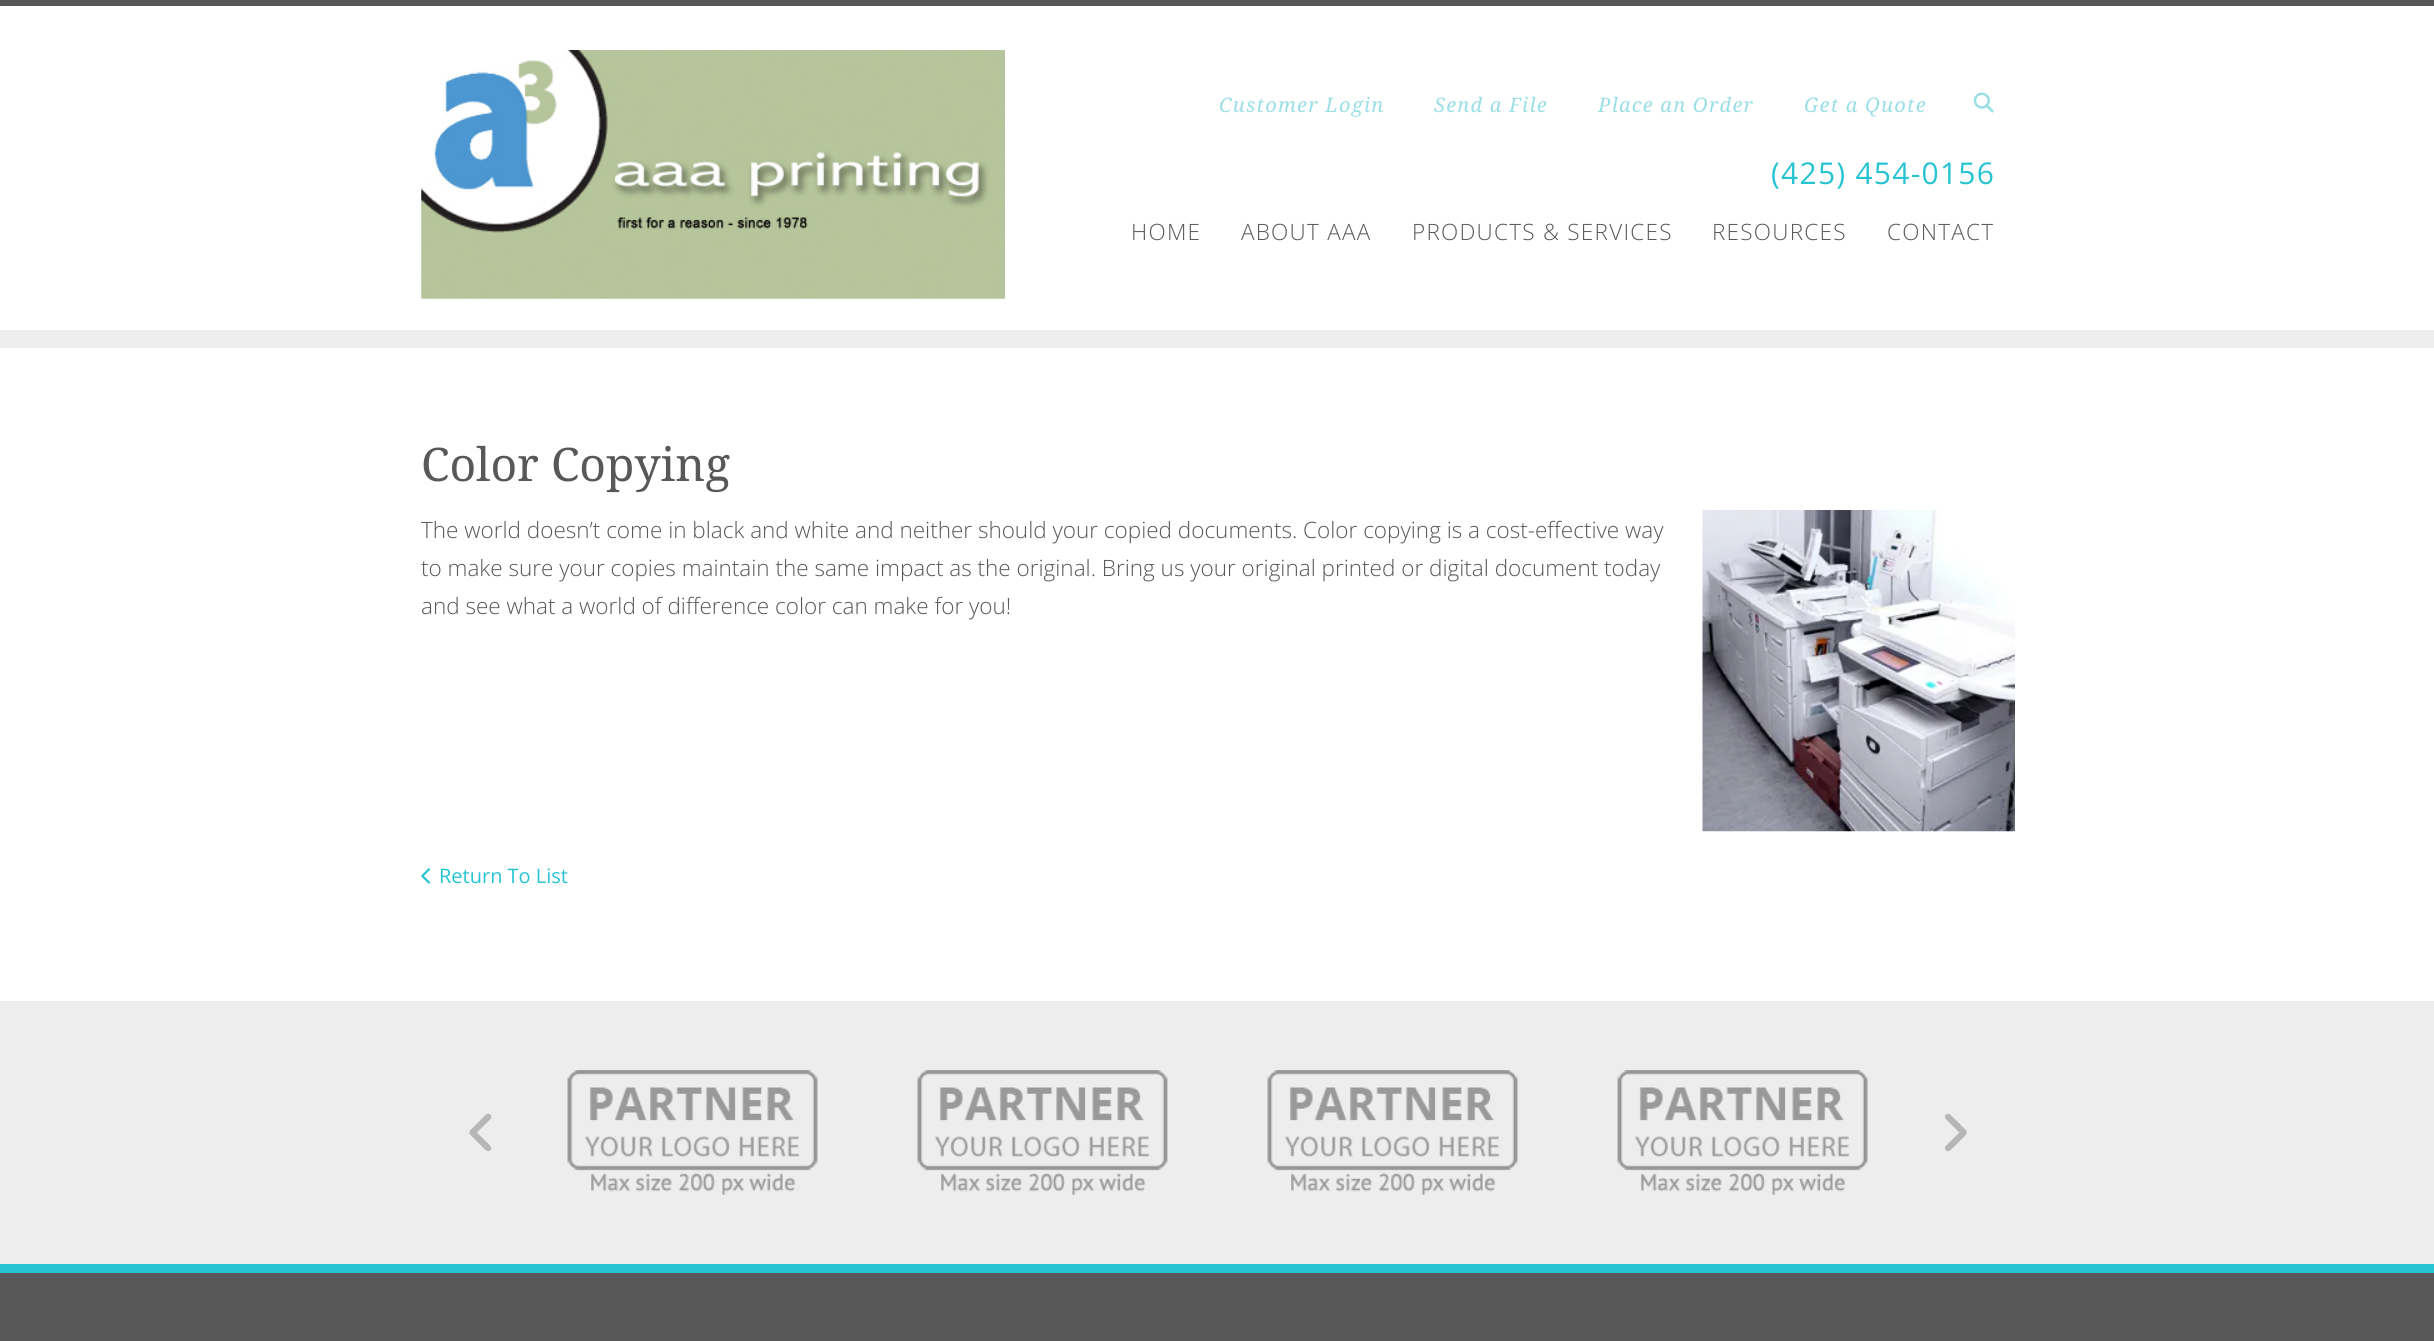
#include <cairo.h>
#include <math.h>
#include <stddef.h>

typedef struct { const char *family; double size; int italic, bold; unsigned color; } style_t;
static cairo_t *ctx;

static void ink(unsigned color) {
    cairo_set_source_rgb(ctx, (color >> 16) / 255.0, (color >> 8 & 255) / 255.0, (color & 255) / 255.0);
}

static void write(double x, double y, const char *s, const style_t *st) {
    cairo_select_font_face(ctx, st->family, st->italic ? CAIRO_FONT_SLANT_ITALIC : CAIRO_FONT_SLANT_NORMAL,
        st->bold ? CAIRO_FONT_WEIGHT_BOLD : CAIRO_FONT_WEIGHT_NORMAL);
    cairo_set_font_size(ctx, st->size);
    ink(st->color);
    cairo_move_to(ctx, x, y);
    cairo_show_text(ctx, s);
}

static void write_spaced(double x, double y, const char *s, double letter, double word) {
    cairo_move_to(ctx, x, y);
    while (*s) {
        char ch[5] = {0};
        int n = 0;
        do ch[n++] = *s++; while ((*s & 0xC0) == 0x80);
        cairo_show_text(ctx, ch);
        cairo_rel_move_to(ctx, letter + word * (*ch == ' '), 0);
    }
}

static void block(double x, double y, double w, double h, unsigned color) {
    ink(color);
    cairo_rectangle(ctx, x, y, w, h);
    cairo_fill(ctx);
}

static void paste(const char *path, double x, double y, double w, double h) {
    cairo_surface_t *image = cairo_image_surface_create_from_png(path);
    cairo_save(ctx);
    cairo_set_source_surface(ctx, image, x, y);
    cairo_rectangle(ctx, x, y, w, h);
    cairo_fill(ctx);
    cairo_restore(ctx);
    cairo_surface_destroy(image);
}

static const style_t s1 = {"Noto Serif", 46.25, 0, 0, 0x585858};
static const style_t s2 = {"Open Sans Light", 22.5, 0, 0, 0x585858};
static const style_t s3 = {"Open Sans", 20, 0, 0, 0x26c4d2};

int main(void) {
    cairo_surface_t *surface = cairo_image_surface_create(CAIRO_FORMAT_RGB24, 2434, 1341);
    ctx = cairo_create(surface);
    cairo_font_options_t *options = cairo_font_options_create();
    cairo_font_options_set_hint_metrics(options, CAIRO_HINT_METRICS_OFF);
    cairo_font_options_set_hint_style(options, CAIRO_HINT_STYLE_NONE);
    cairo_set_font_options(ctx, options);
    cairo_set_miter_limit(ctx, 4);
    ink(0x585858);
    cairo_paint(ctx);
    block(0, 6, 2434, 324, 0xffffff);
    paste("pic1.png", 421, 50, 584, 249);
    cairo_select_font_face(ctx, "Noto Serif", CAIRO_FONT_SLANT_ITALIC, CAIRO_FONT_WEIGHT_NORMAL);
    cairo_set_font_size(ctx, 20);
    ink(0x99dfe5);
    write_spaced(1219, 112, "Customer Login", 1.25, 0);
    write_spaced(1434, 112, "Send a File", 1.25, 0);
    write_spaced(1598, 112, "Place an Order", 1.25, 0);
    write_spaced(1804, 112, "Get a Quote", 1.25, 0);
    paste("pic2.png", 1973, 92, 21, 21);
    cairo_select_font_face(ctx, "Open Sans", CAIRO_FONT_SLANT_NORMAL, CAIRO_FONT_WEIGHT_NORMAL);
    cairo_set_font_size(ctx, 30);
    ink(0x26c4d2);
    write_spaced(1771, 184, "(425) 454-0156", 1.25, 0);
    cairo_select_font_face(ctx, "Open Sans Light", CAIRO_FONT_SLANT_NORMAL, CAIRO_FONT_WEIGHT_NORMAL);
    cairo_set_font_size(ctx, 22.5);
    ink(0x585858);
    write_spaced(1131, 240, "HOME", 1.25, 0);
    write_spaced(1241, 240, "ABOUT AAA", 1.25, 0);
    write_spaced(1412, 240, "PRODUCTS & SERVICES", 1.25, 0);
    write_spaced(1712, 240, "RESOURCES", 1.25, 0);
    write_spaced(1887, 240, "CONTACT", 1.25, 0);
    block(0, 330, 2434, 18, 0xededed);
    block(0, 348, 2434, 653, 0xffffff);
    write(421, 481, "Color Copying", &s1);
    write(421, 538, "The world doesn’t come in black and white and neither should your copied documents. Color copying is a cost-effective way", &s2);
    write(421, 576, "to make sure your copies maintain the same impact as the original. Bring us your original printed or digital document today", &s2);
    write(421, 614, "and see what a world of difference color can make for you!", &s2);
    paste("pic3.png", 1702, 510, 313, 322);
    paste("pic4.png", 421, 868, 9, 16);
    write(439, 883, "Return To List", &s3);
    block(0, 1001, 2434, 263, 0xededed);
    paste("pic5.png", 567, 1070, 251, 125);
    paste("pic6.png", 917, 1070, 251, 125);
    paste("pic6.png", 1267, 1070, 251, 125);
    paste("pic7.png", 1617, 1070, 251, 125);
    paste("pic8.png", 469, 1113, 23, 39);
    paste("pic9.png", 1945, 1113, 22, 39);
    block(0, 1264, 2434, 9, 0x26c4d2);
    cairo_surface_write_to_png(surface, "screenshot.png");
    cairo_font_options_destroy(options);
    cairo_destroy(ctx);
    cairo_surface_destroy(surface);
    return 0;
}
